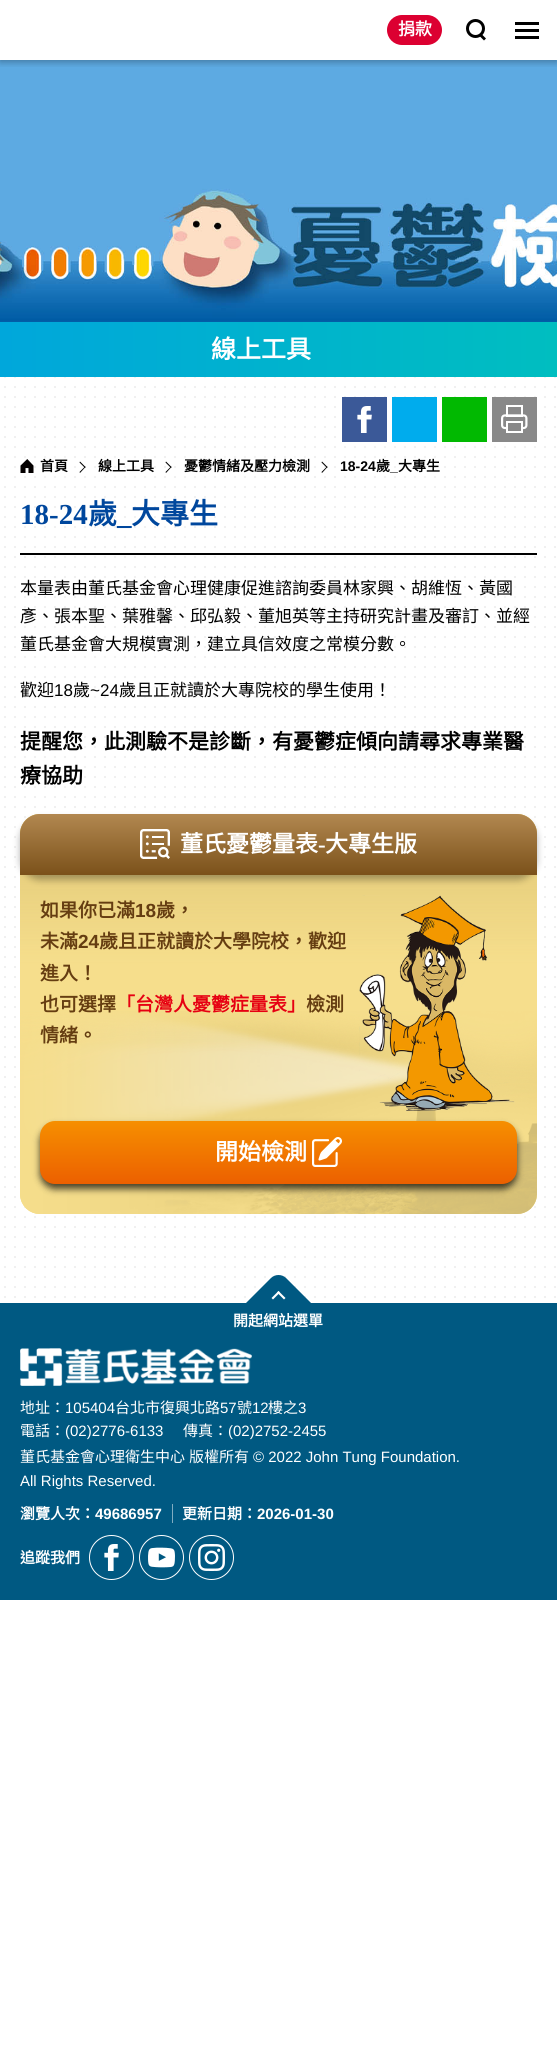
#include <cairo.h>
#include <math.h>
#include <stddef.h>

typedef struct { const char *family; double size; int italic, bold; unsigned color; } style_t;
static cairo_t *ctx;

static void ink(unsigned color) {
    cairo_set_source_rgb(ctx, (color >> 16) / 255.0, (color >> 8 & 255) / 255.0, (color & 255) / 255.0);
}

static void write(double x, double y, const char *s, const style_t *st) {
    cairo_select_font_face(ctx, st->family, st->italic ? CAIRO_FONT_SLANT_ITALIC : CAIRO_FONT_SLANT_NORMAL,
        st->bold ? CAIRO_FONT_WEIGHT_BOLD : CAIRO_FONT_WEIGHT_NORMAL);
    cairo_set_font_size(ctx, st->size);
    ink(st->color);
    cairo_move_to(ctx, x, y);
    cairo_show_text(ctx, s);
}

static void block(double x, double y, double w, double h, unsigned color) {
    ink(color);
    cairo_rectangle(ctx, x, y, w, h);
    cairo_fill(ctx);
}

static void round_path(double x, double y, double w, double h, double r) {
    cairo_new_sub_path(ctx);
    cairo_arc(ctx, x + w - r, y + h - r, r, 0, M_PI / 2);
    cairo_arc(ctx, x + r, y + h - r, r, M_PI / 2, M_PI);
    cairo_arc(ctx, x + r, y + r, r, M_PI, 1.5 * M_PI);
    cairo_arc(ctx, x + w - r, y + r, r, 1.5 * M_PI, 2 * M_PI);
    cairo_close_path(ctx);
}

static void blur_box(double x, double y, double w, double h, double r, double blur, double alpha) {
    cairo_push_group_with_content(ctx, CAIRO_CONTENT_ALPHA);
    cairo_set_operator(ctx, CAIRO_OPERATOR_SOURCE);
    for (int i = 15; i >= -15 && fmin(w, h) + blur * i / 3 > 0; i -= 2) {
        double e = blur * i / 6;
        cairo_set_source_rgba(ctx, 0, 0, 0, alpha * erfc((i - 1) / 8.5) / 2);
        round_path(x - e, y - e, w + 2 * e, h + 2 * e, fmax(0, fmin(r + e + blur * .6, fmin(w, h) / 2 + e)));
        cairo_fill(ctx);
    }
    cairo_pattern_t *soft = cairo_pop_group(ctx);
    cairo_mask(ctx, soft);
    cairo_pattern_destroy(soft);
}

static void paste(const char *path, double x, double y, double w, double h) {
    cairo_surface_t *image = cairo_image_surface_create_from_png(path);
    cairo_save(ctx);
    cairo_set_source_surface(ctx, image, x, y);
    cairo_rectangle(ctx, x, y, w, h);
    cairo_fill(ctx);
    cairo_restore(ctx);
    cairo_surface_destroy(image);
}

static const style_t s1 = {"Noto Sans CJK TC", 17, 0, 1, 0xffffff};
static const style_t s2 = {"Noto Sans CJK TC", 25, 0, 1, 0xffffff};
static const style_t s3 = {"Noto Sans CJK TC", 14, 0, 1, 0x000000};
static const style_t s4 = {"Liberation Sans", 14, 0, 1, 0x000000};
static const style_t s5 = {"Liberation Serif", 29, 0, 1, 0x00479d};
static const style_t s6 = {"Noto Sans CJK TC", 29, 0, 1, 0x00479d};
static const style_t s7 = {"Noto Sans CJK TC", 17, 0, 0, 0x000000};
static const style_t s8 = {"Liberation Sans", 17, 0, 0, 0x000000};
static const style_t s9 = {"Noto Sans CJK TC", 21, 0, 1, 0x000000};
static const style_t s10 = {"Noto Sans CJK TC", 23, 0, 1, 0xffffff};
static const style_t s11 = {"Liberation Serif", 23, 0, 1, 0xffffff};
static const style_t s12 = {"Noto Sans CJK TC", 19, 0, 1, 0x653d11};
static const style_t s13 = {"Liberation Sans", 19, 0, 1, 0x653d11};
static const style_t s14 = {"Noto Sans CJK TC", 19, 0, 1, 0xe60012};
static const style_t s15 = {"Noto Sans CJK TC", 15, 0, 1, 0xffffff};
static const style_t s16 = {"Noto Sans CJK TC", 15, 0, 0, 0xffffff};
static const style_t s17 = {"Liberation Sans", 15, 0, 0, 0xffffff};
static const style_t s18 = {"Liberation Sans", 15, 0, 1, 0xffffff};

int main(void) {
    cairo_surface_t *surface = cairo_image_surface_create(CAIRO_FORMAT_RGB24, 557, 2066);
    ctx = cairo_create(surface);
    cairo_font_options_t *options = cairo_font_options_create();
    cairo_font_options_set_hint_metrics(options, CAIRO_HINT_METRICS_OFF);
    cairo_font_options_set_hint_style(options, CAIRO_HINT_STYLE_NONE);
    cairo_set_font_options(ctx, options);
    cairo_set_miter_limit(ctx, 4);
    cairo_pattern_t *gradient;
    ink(0xffffff);
    cairo_paint(ctx);
    paste("pic1.png", 0, 60, 557, 262);
    cairo_save(ctx);
    cairo_rectangle(ctx, 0, 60, 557, 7);
    cairo_clip(ctx);
    ink(0x000000);
    blur_box(0, 2, 557, 60, 0, 3.5, 0.3);
    cairo_restore(ctx);
    ink(0xdc0031);
    round_path(387, 15, 55, 30, 15);
    cairo_fill(ctx);
    write(398, 35, "捐款", &s1);
    cairo_new_path(ctx);
    cairo_arc(ctx, 475.5, 28.5, 8, 0, 2 * M_PI);
    ink(0x000000);
    cairo_set_line_width(ctx, 3);
    cairo_stroke(ctx);
    cairo_new_path(ctx);
    cairo_move_to(ctx, 481, 33.5);
    cairo_line_to(ctx, 486, 38.5);
    cairo_line_to(ctx, 484, 40.5);
    cairo_line_to(ctx, 479, 35.5);
    cairo_close_path(ctx);
    cairo_fill(ctx);
    block(515, 29, 24, 3, 0x000000);
    block(515, 22, 24, 3, 0x000000);
    block(515, 36, 24, 3, 0x000000);
    paste("pic2.png", 4, 377, 552, 921);
    gradient = cairo_pattern_create_linear(557, 350, 0, 350);
    cairo_pattern_add_color_stop_rgba(gradient, 0, 0, 0.745, 0.753, 1);
    cairo_pattern_add_color_stop_rgba(gradient, 1, 0, 0.655, 0.859, 1);
    cairo_set_source(ctx, gradient);
    cairo_pattern_destroy(gradient);
    cairo_rectangle(ctx, 0, 322, 557, 55);
    cairo_fill(ctx);
    write(211, 358, "線上工具", &s2);
    block(342, 397, 45, 45, 0x3b5998);
    paste("pic3.png", 357, 406, 15, 27);
    block(392, 397, 45, 45, 0x00aced);
    block(442, 397, 45, 45, 0x01b901);
    block(492, 397, 45, 45, 0x898989);
    paste("pic4.png", 501, 405, 27, 28);
    paste("pic5.png", 20, 459, 14, 14);
    write(40, 471, "首頁", &s3);
    cairo_new_path(ctx);
    cairo_move_to(ctx, 85, 468);
    cairo_line_to(ctx, 79.5, 462.5);
    cairo_line_to(ctx, 80, 461.5);
    cairo_line_to(ctx, 85.5, 467);
    cairo_close_path(ctx);
    cairo_fill(ctx);
    cairo_new_path(ctx);
    cairo_move_to(ctx, 80, 473);
    cairo_line_to(ctx, 79.5, 472);
    cairo_line_to(ctx, 85, 466.5);
    cairo_line_to(ctx, 85.5, 467);
    cairo_close_path(ctx);
    cairo_fill(ctx);
    write(98, 471, "線上工具", &s3);
    cairo_new_path(ctx);
    cairo_move_to(ctx, 171, 468);
    cairo_line_to(ctx, 165.5, 462.5);
    cairo_line_to(ctx, 166, 461.5);
    cairo_line_to(ctx, 171.5, 467);
    cairo_close_path(ctx);
    cairo_fill(ctx);
    cairo_new_path(ctx);
    cairo_move_to(ctx, 166, 473);
    cairo_line_to(ctx, 165.5, 472);
    cairo_line_to(ctx, 171, 466.5);
    cairo_line_to(ctx, 171.5, 467);
    cairo_close_path(ctx);
    cairo_fill(ctx);
    write(184, 471, "憂鬱情緒及壓力檢測", &s3);
    cairo_new_path(ctx);
    cairo_move_to(ctx, 327, 468);
    cairo_line_to(ctx, 321.5, 462.5);
    cairo_line_to(ctx, 322, 461.5);
    cairo_line_to(ctx, 327.5, 467);
    cairo_close_path(ctx);
    cairo_fill(ctx);
    cairo_new_path(ctx);
    cairo_move_to(ctx, 322, 473);
    cairo_line_to(ctx, 321.5, 472);
    cairo_line_to(ctx, 327, 466.5);
    cairo_line_to(ctx, 327.5, 467);
    cairo_close_path(ctx);
    cairo_fill(ctx);
    write(340, 471, "18-24", &s4);
    write(376, 471, "歲", &s3);
    write(398, 471, "大專生", &s3);
    write(390, 471, "_", &s4);
    block(20, 553, 517, 2, 0x000000);
    write(20, 524, "18-24", &s5);
    write(88, 524, "歲", &s6);
    write(131, 524, "大專生", &s6);
    write(117, 524, "_", &s5);
    write(20, 594, "本量表由董氏基金會心理健康促進諮詢委員林家興、胡維恆、黃國", &s7);
    write(20, 622, "彥、張本聖、葉雅馨、邱弘毅、董旭英等主持研究計畫及審訂、並經", &s7);
    write(20, 650, "董氏基金會大規模實測，建立具信效度之常模分數。", &s7);
    write(20, 696, "歡迎", &s7);
    write(54, 696, "18", &s8);
    write(73, 696, "歲", &s7);
    write(90, 696, "~24", &s8);
    write(119, 696, "歲且正就讀於大專院校的學生使用！", &s7);
    write(20, 749, "提醒您，此測驗不是診斷，有憂鬱症傾向請尋求專業醫", &s9);
    write(20, 783, "療協助", &s9);
    ink(0xf6de8c);
    round_path(20, 814, 517, 400, 20);
    cairo_fill(ctx);
    paste("pic6.png", 20, 1011, 517, 203);
    gradient = cairo_pattern_create_linear(279, 814, 279, 964);
    cairo_pattern_add_color_stop_rgba(gradient, 0, 0.875, 0.78, 0.463, 1);
    cairo_pattern_add_color_stop_rgba(gradient, 1, 0.875, 0.78, 0.463, 0);
    cairo_set_source(ctx, gradient);
    cairo_pattern_destroy(gradient);
    cairo_new_path(ctx);
    cairo_move_to(ctx, 40, 814);
    cairo_line_to(ctx, 517, 814);
    cairo_curve_to(ctx, 528, 814, 537, 823, 537, 834);
    cairo_line_to(ctx, 537, 964);
    cairo_line_to(ctx, 20, 964);
    cairo_line_to(ctx, 20, 834);
    cairo_curve_to(ctx, 20, 823, 29, 814, 40, 814);
    cairo_close_path(ctx);
    cairo_fill(ctx);
    ink(0x000000);
    blur_box(20, 819, 517, 61, 20, 3.5, 0.3);
    gradient = cairo_pattern_create_linear(279, 814, 279, 875);
    cairo_pattern_add_color_stop_rgba(gradient, 0, 0.698, 0.533, 0.314, 1);
    cairo_pattern_add_color_stop_rgba(gradient, 1, 0.482, 0.318, 0.102, 1);
    cairo_set_source(ctx, gradient);
    cairo_pattern_destroy(gradient);
    cairo_new_path(ctx);
    cairo_move_to(ctx, 40, 814);
    cairo_line_to(ctx, 517, 814);
    cairo_curve_to(ctx, 528, 814, 537, 823, 537, 834);
    cairo_line_to(ctx, 537, 875);
    cairo_line_to(ctx, 20, 875);
    cairo_line_to(ctx, 20, 834);
    cairo_curve_to(ctx, 20, 823, 29, 814, 40, 814);
    cairo_close_path(ctx);
    cairo_fill(ctx);
    paste("pic7.png", 140, 829, 30, 30);
    write(180, 852, "董氏憂鬱量表", &s10);
    write(318, 852, "-", &s11);
    write(325, 852, "大專生版", &s10);
    write(40, 917, "如果你已滿", &s12);
    write(135, 917, "18", &s13);
    write(156, 917, "歲，", &s12);
    write(40, 948, "未滿", &s12);
    write(78, 948, "24", &s13);
    write(99, 948, "歲且正就讀於大學院校，歡迎", &s12);
    write(40, 980, "進入！", &s12);
    write(40, 1011, "也可選擇", &s12);
    write(116, 1011, "「台灣人憂鬱症量表」", &s14);
    write(306, 1011, "檢測", &s12);
    write(40, 1042, "情緒。", &s12);
    paste("pic8.png", 359, 895, 156, 216);
    ink(0x000000);
    blur_box(40, 1126, 477, 63, 15, 3.5, 0.7);
    gradient = cairo_pattern_create_linear(279, 1121, 279, 1184);
    cairo_pattern_add_color_stop_rgba(gradient, 0, 0.965, 0.561, 0, 1);
    cairo_pattern_add_color_stop_rgba(gradient, 1, 0.925, 0.376, 0, 1);
    cairo_set_source(ctx, gradient);
    cairo_pattern_destroy(gradient);
    round_path(40, 1121, 477, 63, 15);
    cairo_fill(ctx);
    write(215, 1160, "開始檢測", &s10);
    paste("pic9.png", 312, 1137, 30, 30);
    block(0, 1303, 557, 297, 0x005982);
    cairo_save(ctx);
    cairo_rectangle(ctx, 224, 1273, 110, 55);
    cairo_clip(ctx);
    cairo_new_path(ctx);
    cairo_move_to(ctx, 286, 1278);
    cairo_line_to(ctx, 314, 1306);
    cairo_curve_to(ctx, 318, 1310, 318, 1316, 314, 1320);
    cairo_line_to(ctx, 286, 1348);
    cairo_curve_to(ctx, 282, 1352, 275, 1352, 271, 1348);
    cairo_line_to(ctx, 243, 1320);
    cairo_curve_to(ctx, 239, 1316, 239, 1310, 243, 1306);
    cairo_line_to(ctx, 271, 1278);
    cairo_curve_to(ctx, 275, 1274, 282, 1274, 286, 1278);
    cairo_close_path(ctx);
    cairo_fill(ctx);
    cairo_restore(ctx);
    ink(0xffffff);
    cairo_new_path(ctx);
    cairo_move_to(ctx, 278.5, 1291);
    cairo_line_to(ctx, 285.5, 1298);
    cairo_line_to(ctx, 284, 1299.5);
    cairo_line_to(ctx, 277, 1292.5);
    cairo_close_path(ctx);
    cairo_fill(ctx);
    cairo_new_path(ctx);
    cairo_move_to(ctx, 278.5, 1291);
    cairo_line_to(ctx, 280, 1292.5);
    cairo_line_to(ctx, 273, 1299.5);
    cairo_line_to(ctx, 271.5, 1298);
    cairo_close_path(ctx);
    cairo_fill(ctx);
    write(233, 1326, "開起網站選單", &s15);
    paste("pic10.png", 20, 1348, 232, 38);
    write(20, 1413, "地址：", &s16);
    write(65, 1413, "105404", &s17);
    write(115, 1413, "台北市復興北路", &s16);
    write(220, 1413, "57", &s17);
    write(237, 1413, "號", &s16);
    write(252, 1413, "12", &s17);
    write(268, 1413, "樓之", &s16);
    write(298, 1413, "3", &s17);
    write(20, 1436, "電話：", &s16);
    write(65, 1436, "(02)2776-6133", &s17);
    write(183, 1436, "傳真：", &s16);
    write(228, 1436, "(02)2752-2455", &s17);
    write(20, 1462, "董氏基金會心理衛生中心", &s16);
    write(189, 1462, "版權所有", &s16);
    write(253, 1462, "© 2022 John Tung Foundation.", &s17);
    write(20, 1486, "All Rights Reserved.", &s17);
    write(20, 1519, "瀏覽人次：", &s15);
    write(95, 1519, "49686957", &s18);
    block(172, 1504, 1, 19, 0x80acc1);
    write(182, 1519, "更新日期：", &s15);
    write(257, 1519, "2026-01-30", &s18);
    write(20, 1563, "追蹤我們", &s15);
    cairo_new_path(ctx);
    cairo_arc(ctx, 111.5, 1557.5, 22, 0, 2 * M_PI);
    cairo_set_line_width(ctx, 1);
    cairo_stroke(ctx);
    paste("pic11.png", 104, 1544, 15, 27);
    cairo_arc(ctx, 161.5, 1557.5, 22, 0, 2 * M_PI);
    cairo_stroke(ctx);
    paste("pic12.png", 148, 1547, 27, 21);
    cairo_arc(ctx, 211.5, 1557.5, 22, 0, 2 * M_PI);
    cairo_stroke(ctx);
    paste("pic13.png", 198, 1544, 27, 27);
    cairo_surface_write_to_png(surface, "screenshot.png");
    cairo_font_options_destroy(options);
    cairo_destroy(ctx);
    cairo_surface_destroy(surface);
    return 0;
}
